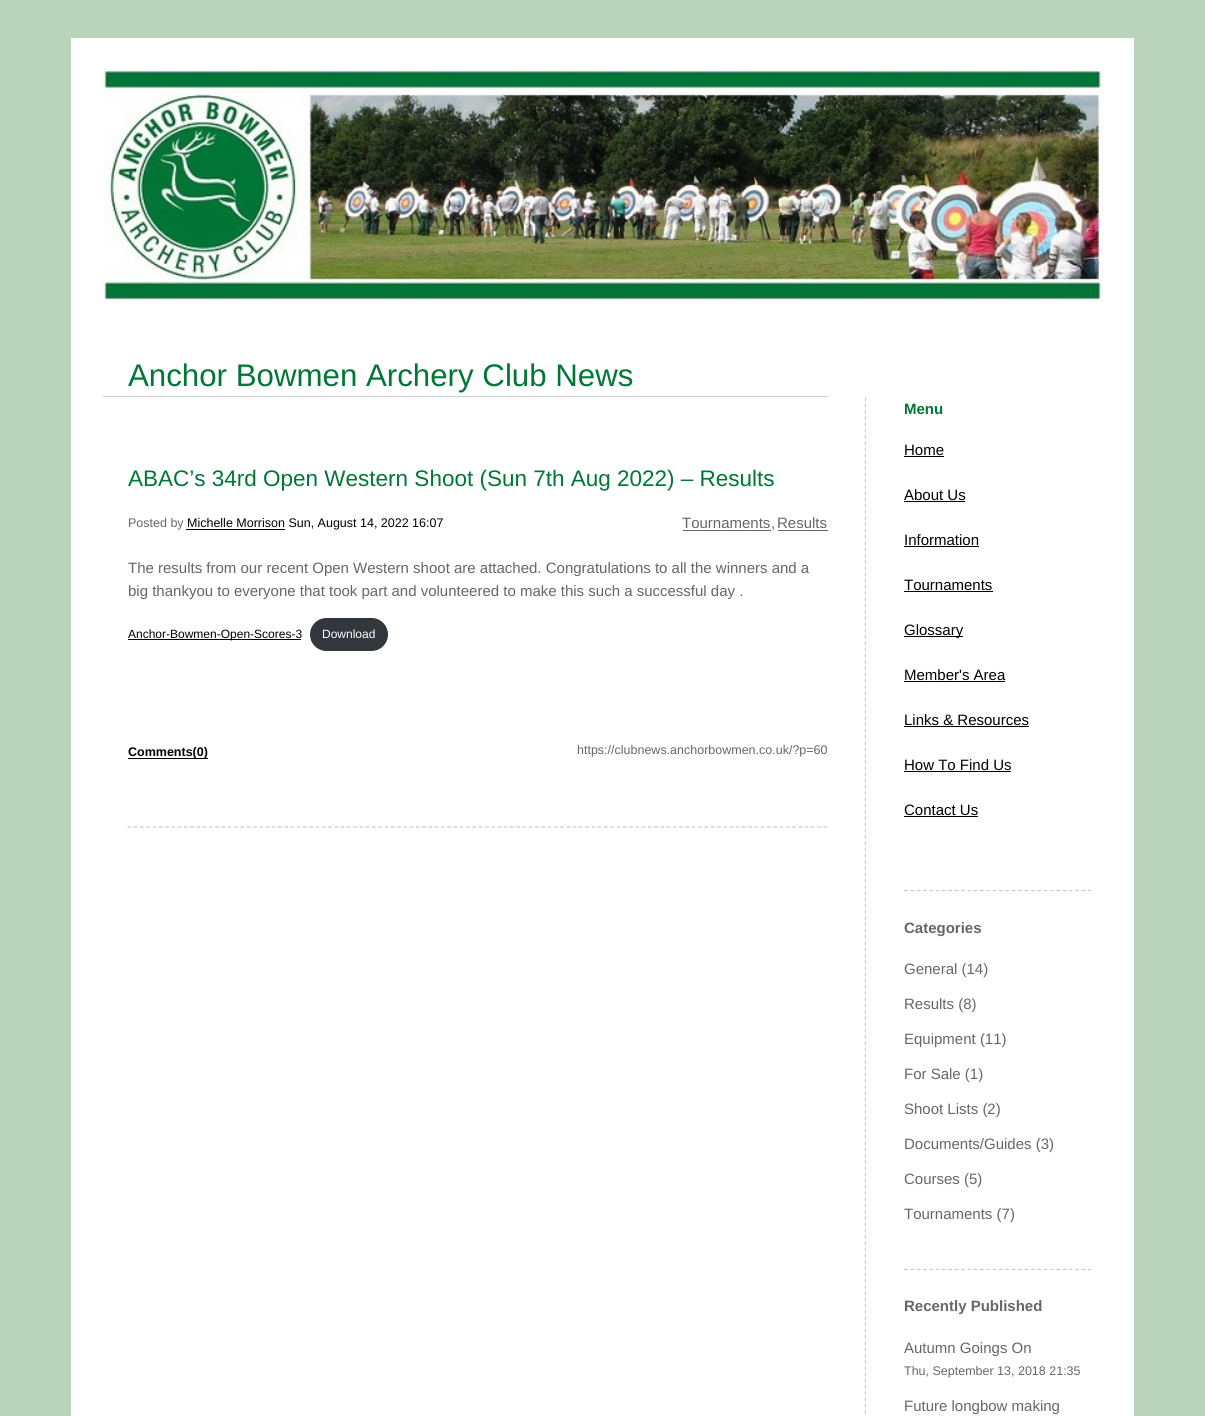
#include <cairo.h>
#include <math.h>
#include <stddef.h>

typedef struct { const char *family; double size; int italic, bold; unsigned color; } style_t;
static cairo_t *ctx;

static void ink(unsigned color) {
    cairo_set_source_rgb(ctx, (color >> 16) / 255.0, (color >> 8 & 255) / 255.0, (color & 255) / 255.0);
}

static void write(double x, double y, const char *s, const style_t *st) {
    cairo_select_font_face(ctx, st->family, st->italic ? CAIRO_FONT_SLANT_ITALIC : CAIRO_FONT_SLANT_NORMAL,
        st->bold ? CAIRO_FONT_WEIGHT_BOLD : CAIRO_FONT_WEIGHT_NORMAL);
    cairo_set_font_size(ctx, st->size);
    ink(st->color);
    cairo_move_to(ctx, x, y);
    cairo_show_text(ctx, s);
}

static void block(double x, double y, double w, double h, unsigned color) {
    ink(color);
    cairo_rectangle(ctx, x, y, w, h);
    cairo_fill(ctx);
}

static void round_path(double x, double y, double w, double h, double r) {
    cairo_new_sub_path(ctx);
    cairo_arc(ctx, x + w - r, y + h - r, r, 0, M_PI / 2);
    cairo_arc(ctx, x + r, y + h - r, r, M_PI / 2, M_PI);
    cairo_arc(ctx, x + r, y + r, r, M_PI, 1.5 * M_PI);
    cairo_arc(ctx, x + w - r, y + r, r, 1.5 * M_PI, 2 * M_PI);
    cairo_close_path(ctx);
}

static void paste(const char *path, double x, double y, double w, double h) {
    cairo_surface_t *image = cairo_image_surface_create_from_png(path);
    cairo_save(ctx);
    cairo_set_source_surface(ctx, image, x, y);
    cairo_rectangle(ctx, x, y, w, h);
    cairo_fill(ctx);
    cairo_restore(ctx);
    cairo_surface_destroy(image);
}

static const style_t s1 = {"Liberation Sans", 31.25, 0, 0, 0x007737};
static const style_t s2 = {"Liberation Sans", 22.5, 0, 0, 0x007737};
static const style_t s3 = {"Liberation Sans", 12.5, 0, 0, 0x666666};
static const style_t s4 = {"Liberation Sans", 12.5, 0, 0, 0x000000};
static const style_t s5 = {"Liberation Sans", 15, 0, 0, 0x666666};
static const style_t s6 = {"Liberation Sans", 12, 0, 0, 0x000000};
static const style_t s7 = {"Liberation Sans", 12, 0, 0, 0xffffff};
static const style_t s8 = {"Liberation Sans", 12.5, 0, 1, 0x000000};
static const style_t s9 = {"Liberation Sans", 15, 0, 1, 0x007737};
static const style_t s10 = {"Liberation Sans", 15, 0, 0, 0x000000};
static const style_t s11 = {"Liberation Sans", 15, 0, 1, 0x666666};

int main(void) {
    cairo_surface_t *surface = cairo_image_surface_create(CAIRO_FORMAT_RGB24, 1205, 1416);
    ctx = cairo_create(surface);
    cairo_font_options_t *options = cairo_font_options_create();
    cairo_font_options_set_hint_metrics(options, CAIRO_HINT_METRICS_OFF);
    cairo_font_options_set_hint_style(options, CAIRO_HINT_STYLE_NONE);
    cairo_set_font_options(ctx, options);
    cairo_set_miter_limit(ctx, 4);
    ink(0xbad3bb);
    cairo_paint(ctx);
    block(71, 38, 1063, 1378, 0xffffff);
    paste("pic1.png", 102, 69, 1001, 234);
    block(103, 396, 725, 1, 0xcccccc);
    write(128, 386, "Anchor Bowmen Archery Club News", &s1);
    cairo_new_path(ctx);
    cairo_move_to(ctx, 127.5, 827);
    cairo_line_to(ctx, 827.5, 827);
    ink(0xcccccc);
    cairo_set_line_width(ctx, 1.2);
    cairo_set_dash(ctx, (double[]){3.75, 2.52}, 2, 0);
    cairo_stroke(ctx);
    write(128, 486, "ABAC’s 34rd Open Western Shoot (Sun 7th Aug 2022) – Results", &s2);
    write(128, 527, "Posted by", &s3);
    block(186, 529, 99, 1, 0x000000);
    write(187, 527, "Michelle Morrison Sun, August 14, 2022 16:07", &s4);
    write(682, 528, "Tournaments", &s5);
    block(683, 530, 88, 1, 0x666666);
    write(771, 528, ",", &s5);
    write(777, 528, "Results", &s5);
    block(778, 530, 50, 1, 0x666666);
    write(128, 573, "The results from our recent Open Western shoot are attached. Congratulations to all the winners and a", &s5);
    write(128, 596, "big thankyou to everyone that took part and volunteered to make this such a successful day .", &s5);
    block(128, 639, 173, 1, 0x000000);
    write(128, 638, "Anchor-Bowmen-Open-Scores-3", &s6);
    ink(0x32373c);
    round_path(310, 618, 78, 33, 16.5);
    cairo_fill(ctx);
    write(322, 638, "Download", &s7);
    block(128, 758, 80, 1, 0x000000);
    write(128, 756, "Comments(0)", &s8);
    write(577, 754, "https://clubnews.anchorbowmen.co.uk/?p=60", &s3);
    cairo_new_path(ctx);
    cairo_move_to(ctx, 865.5, 397.5);
    cairo_line_to(ctx, 865.5, 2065);
    ink(0xcccccc);
    cairo_set_dash(ctx, (double[]){3.75, 2.5}, 2, 0);
    cairo_stroke(ctx);
    cairo_new_path(ctx);
    cairo_move_to(ctx, 904, 890.5);
    cairo_line_to(ctx, 1091, 890.5);
    cairo_set_dash(ctx, (double[]){3.75, 2.59}, 2, 0);
    cairo_stroke(ctx);
    write(904, 414, "Menu", &s9);
    write(904, 455, "Home", &s10);
    block(904, 456, 40, 1, 0x000000);
    write(904, 500, "About Us", &s10);
    block(904, 501, 61, 1, 0x000000);
    write(904, 545, "Information", &s10);
    block(904, 546, 75, 1, 0x000000);
    write(904, 590, "Tournaments", &s10);
    block(904, 591, 89, 1, 0x000000);
    block(904, 636, 59, 1, 0x000000);
    write(904, 635, "Glossary", &s10);
    write(904, 680, "Member's Area", &s10);
    block(904, 681, 101, 1, 0x000000);
    write(904, 725, "Links & Resources", &s10);
    block(904, 726, 125, 1, 0x000000);
    write(904, 770, "How To Find Us", &s10);
    block(904, 771, 107, 1, 0x000000);
    write(904, 815, "Contact Us", &s10);
    block(904, 816, 74, 1, 0x000000);
    cairo_new_path(ctx);
    cairo_move_to(ctx, 904, 1269.5);
    cairo_line_to(ctx, 1091, 1269.5);
    ink(0xcccccc);
    cairo_stroke(ctx);
    write(904, 933, "Categories", &s11);
    write(904, 974, "General (14)", &s5);
    write(904, 1009, "Results (8)", &s5);
    write(904, 1044, "Equipment (11)", &s5);
    write(904, 1079, "For Sale (1)", &s5);
    write(904, 1114, "Shoot Lists (2)", &s5);
    write(904, 1149, "Documents/Guides (3)", &s5);
    write(904, 1184, "Courses (5)", &s5);
    write(904, 1219, "Tournaments (7)", &s5);
    write(904, 1311, "Recently Published", &s11);
    write(904, 1353, "Autumn Goings On", &s5);
    write(904, 1375, "Thu, September 13, 2018 21:35", &s3);
    write(904, 1411, "Future longbow making", &s5);
    cairo_surface_write_to_png(surface, "screenshot.png");
    cairo_font_options_destroy(options);
    cairo_destroy(ctx);
    cairo_surface_destroy(surface);
    return 0;
}
